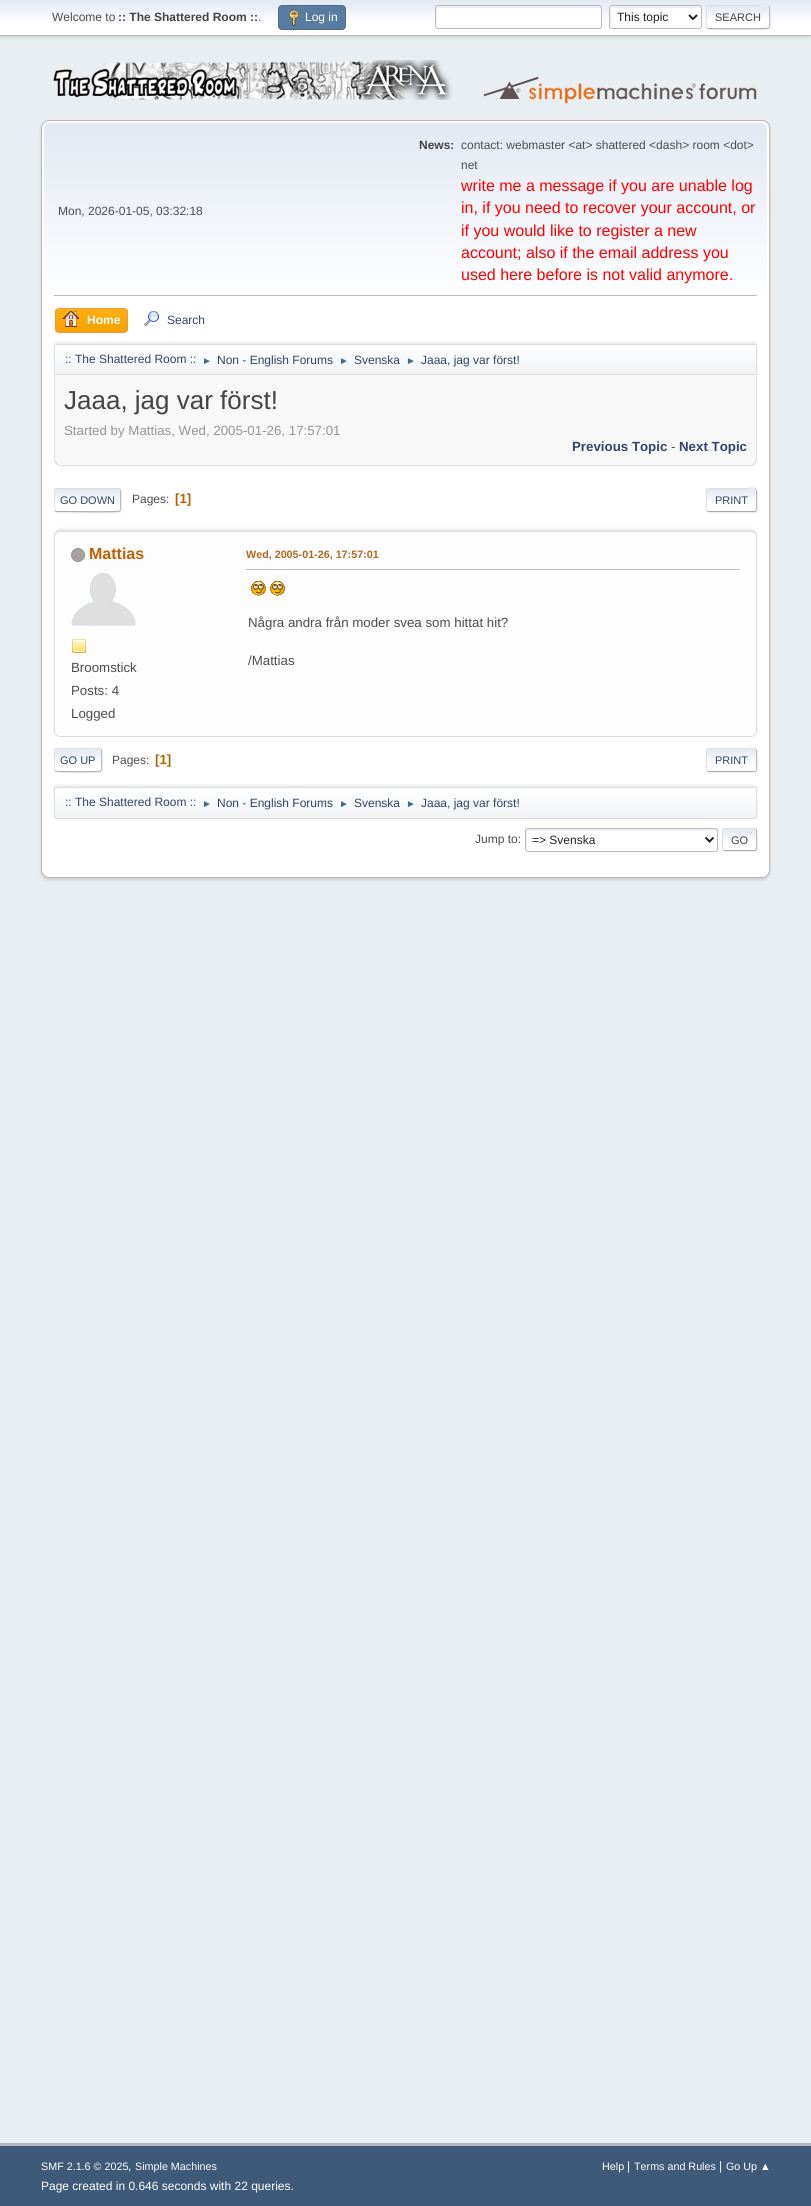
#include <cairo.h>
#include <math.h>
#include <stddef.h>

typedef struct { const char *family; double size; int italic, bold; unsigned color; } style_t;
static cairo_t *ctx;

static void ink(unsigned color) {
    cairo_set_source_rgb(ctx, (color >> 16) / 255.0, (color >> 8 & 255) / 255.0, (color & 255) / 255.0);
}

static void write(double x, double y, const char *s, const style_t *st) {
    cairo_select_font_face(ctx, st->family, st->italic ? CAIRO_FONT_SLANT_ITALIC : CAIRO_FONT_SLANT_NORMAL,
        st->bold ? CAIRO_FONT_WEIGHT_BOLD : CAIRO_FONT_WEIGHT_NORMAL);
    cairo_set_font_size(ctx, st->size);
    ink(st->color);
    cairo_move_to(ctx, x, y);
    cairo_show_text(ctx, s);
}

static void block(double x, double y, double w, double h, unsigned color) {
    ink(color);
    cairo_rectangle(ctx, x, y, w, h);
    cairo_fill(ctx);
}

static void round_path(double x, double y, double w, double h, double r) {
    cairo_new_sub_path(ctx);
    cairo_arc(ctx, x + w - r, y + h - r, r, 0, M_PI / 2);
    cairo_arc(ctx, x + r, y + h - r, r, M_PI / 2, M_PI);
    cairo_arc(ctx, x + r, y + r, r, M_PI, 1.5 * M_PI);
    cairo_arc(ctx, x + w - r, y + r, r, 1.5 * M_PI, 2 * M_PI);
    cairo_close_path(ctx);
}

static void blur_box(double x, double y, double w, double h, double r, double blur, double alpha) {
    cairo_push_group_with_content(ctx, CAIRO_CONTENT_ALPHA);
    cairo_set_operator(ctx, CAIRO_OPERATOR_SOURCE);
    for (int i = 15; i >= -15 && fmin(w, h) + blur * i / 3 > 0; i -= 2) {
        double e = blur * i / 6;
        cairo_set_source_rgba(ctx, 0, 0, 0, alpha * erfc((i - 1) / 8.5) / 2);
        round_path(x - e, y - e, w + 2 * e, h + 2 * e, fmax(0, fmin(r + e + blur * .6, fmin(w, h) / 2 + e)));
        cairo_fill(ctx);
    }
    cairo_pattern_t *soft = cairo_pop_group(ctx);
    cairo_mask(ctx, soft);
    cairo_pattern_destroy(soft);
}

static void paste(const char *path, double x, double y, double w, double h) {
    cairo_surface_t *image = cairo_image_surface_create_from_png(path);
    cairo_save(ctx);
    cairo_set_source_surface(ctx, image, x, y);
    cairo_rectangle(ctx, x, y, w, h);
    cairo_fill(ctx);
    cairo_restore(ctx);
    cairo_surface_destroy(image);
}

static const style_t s1 = {"Liberation Sans", 12, 0, 0, 0x4d4d4d};
static const style_t s2 = {"Liberation Sans", 12, 0, 1, 0x444444};
static const style_t s3 = {"Liberation Sans", 12, 0, 0, 0xffffff};
static const style_t s4 = {"Liberation Sans", 12, 0, 0, 0x222222};
static const style_t s5 = {"Liberation Sans", 11, 0, 0, 0x444444};
static const style_t s6 = {"Liberation Sans", 16, 0, 0, 0xff0000};
static const style_t s7 = {"Liberation Sans", 12, 0, 1, 0xffffff};
static const style_t s8 = {"Liberation Sans", 12, 0, 0, 0x334466};
static const style_t s9 = {"Liberation Sans", 10, 0, 0, 0x3f6b8c};
static const style_t s10 = {"Liberation Sans", 26, 0, 0, 0x444444};
static const style_t s11 = {"Liberation Sans", 13.3, 0, 0, 0x959595};
static const style_t s12 = {"Liberation Sans", 13.3, 0, 1, 0x334466};
static const style_t s13 = {"Liberation Sans", 13.3, 0, 0, 0x4d4d4d};
static const style_t s14 = {"Liberation Sans", 11, 0, 0, 0x334466};
static const style_t s15 = {"Liberation Sans", 13.3, 0, 1, 0xb46100};
static const style_t s16 = {"Liberation Sans", 16, 0, 1, 0xc06002};
static const style_t s17 = {"Liberation Sans", 10.75, 0, 1, 0xad6825};
static const style_t s18 = {"Liberation Sans", 10.75, 0, 0, 0xffffff};

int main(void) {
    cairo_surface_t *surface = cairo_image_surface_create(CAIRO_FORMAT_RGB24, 811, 2206);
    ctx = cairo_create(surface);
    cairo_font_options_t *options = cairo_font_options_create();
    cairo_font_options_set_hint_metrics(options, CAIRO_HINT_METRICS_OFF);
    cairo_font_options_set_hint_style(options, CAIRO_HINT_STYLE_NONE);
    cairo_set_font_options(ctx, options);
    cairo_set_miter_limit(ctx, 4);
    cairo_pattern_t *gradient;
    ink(0xe9eef2);
    cairo_paint(ctx);
    ink(0x000000);
    blur_box(0, 1, 811, 36, 0, 2, 0.16);
    gradient = cairo_pattern_create_linear(406, 0, 406, 35);
    cairo_pattern_add_color_stop_rgba(gradient, 0, 0.886, 0.914, 0.953, 1);
    cairo_pattern_add_color_stop_rgba(gradient, 0.7, 1, 1, 1, 1);
    cairo_set_source(ctx, gradient);
    cairo_pattern_destroy(gradient);
    cairo_rectangle(ctx, 0, 0, 811, 35);
    cairo_fill(ctx);
    block(0, 35, 811, 1, 0xbbbbbb);
    write(52, 21, "Welcome to", &s1);
    write(118, 21, ":: The Shattered Room ::", &s2);
    write(258, 21, ".", &s1);
    ink(0x597b9f);
    round_path(278.5, 5.5, 67, 24, 3.5);
    cairo_fill_preserve(ctx);
    ink(0x4a6b8c);
    cairo_set_line_width(ctx, 1);
    cairo_stroke(ctx);
    paste("pic1.png", 289, 10, 10, 16);
    write(305, 21, "Log in", &s3);
    round_path(435, 5, 167, 24, 3);
    cairo_fill(ctx);
    ink(0xecf1f8);
    cairo_new_path(ctx);
    cairo_move_to(ctx, 439, 8);
    cairo_line_to(ctx, 601, 8);
    cairo_line_to(ctx, 601, 7);
    cairo_line_to(ctx, 599, 6);
    cairo_line_to(ctx, 438, 6);
    cairo_curve_to(ctx, 437, 6, 436, 7, 436, 8);
    cairo_curve_to(ctx, 436, 11, 435, 27, 437, 28);
    cairo_line_to(ctx, 437, 10);
    cairo_curve_to(ctx, 437, 9, 438, 8, 439, 8);
    cairo_close_path(ctx);
    cairo_fill(ctx);
    round_path(435.5, 5.5, 166, 23, 2.5);
    ink(0xbbbbbb);
    cairo_stroke(ctx);
    ink(0xffffff);
    round_path(609, 5, 93, 24, 3);
    cairo_fill(ctx);
    ink(0xecf1f8);
    cairo_new_path(ctx);
    cairo_move_to(ctx, 613, 8);
    cairo_line_to(ctx, 701, 8);
    cairo_curve_to(ctx, 701, 3, 689, 6, 684, 6);
    cairo_line_to(ctx, 626, 6);
    cairo_curve_to(ctx, 608, 6, 610, 2, 610, 17);
    cairo_curve_to(ctx, 610, 19, 609, 27, 611, 28);
    cairo_line_to(ctx, 611, 10);
    cairo_curve_to(ctx, 611, 9, 612, 8, 613, 8);
    cairo_close_path(ctx);
    cairo_fill(ctx);
    round_path(609.5, 5.5, 92, 23, 2.5);
    ink(0xbbbbbb);
    cairo_stroke(ctx);
    cairo_new_path(ctx);
    cairo_move_to(ctx, 689, 15);
    cairo_line_to(ctx, 693, 19);
    cairo_line_to(ctx, 697, 15);
    ink(0x222222);
    cairo_set_line_width(ctx, 2);
    cairo_stroke(ctx);
    write(617, 21, "This topic", &s4);
    ink(0xdddddd);
    blur_box(707, 6, 64, 24, 3, 0.5, 0.57);
    cairo_save(ctx);
    round_path(706, 5, 64, 24, 3);
    cairo_clip(ctx);
    gradient = cairo_pattern_create_linear(738, -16, 738, 6);
    cairo_pattern_add_color_stop_rgba(gradient, 0, 0.886, 0.914, 0.953, 1);
    cairo_pattern_add_color_stop_rgba(gradient, 0.7, 1, 1, 1, 1);
    cairo_set_source(ctx, gradient);
    cairo_pattern_destroy(gradient);
    cairo_rectangle(ctx, 706, 5, 64, 1);
    cairo_fill(ctx);
    gradient = cairo_pattern_create_linear(738, 6, 738, 28);
    cairo_pattern_add_color_stop_rgba(gradient, 0, 0.886, 0.914, 0.953, 1);
    cairo_pattern_add_color_stop_rgba(gradient, 0.7, 1, 1, 1, 1);
    cairo_set_source(ctx, gradient);
    cairo_pattern_destroy(gradient);
    cairo_rectangle(ctx, 706, 6, 64, 22);
    cairo_fill(ctx);
    gradient = cairo_pattern_create_linear(738, 28, 738, 50);
    cairo_pattern_add_color_stop_rgba(gradient, 0, 0.886, 0.914, 0.953, 1);
    cairo_pattern_add_color_stop_rgba(gradient, 0.7, 1, 1, 1, 1);
    cairo_set_source(ctx, gradient);
    cairo_pattern_destroy(gradient);
    cairo_rectangle(ctx, 706, 28, 64, 1);
    cairo_fill(ctx);
    cairo_restore(ctx);
    cairo_new_path(ctx);
    cairo_move_to(ctx, 769, 6);
    cairo_curve_to(ctx, 769, 6.5, 769.5, 7.5, 769.5, 8);
    cairo_line_to(ctx, 769.5, 26);
    cairo_curve_to(ctx, 769.5, 26.5, 769, 27.5, 769, 28);
    ink(0xbbbbbb);
    cairo_set_line_width(ctx, 1);
    cairo_stroke(ctx);
    cairo_new_path(ctx);
    cairo_move_to(ctx, 769, 28);
    cairo_line_to(ctx, 768.5, 28);
    cairo_curve_to(ctx, 767.5, 29, 714, 29, 709, 28.5);
    cairo_line_to(ctx, 707, 28);
    ink(0xaaaaaa);
    cairo_stroke(ctx);
    cairo_new_path(ctx);
    cairo_move_to(ctx, 707, 28);
    cairo_curve_to(ctx, 705.5, 26, 706.5, 19, 706.5, 17);
    cairo_curve_to(ctx, 706.5, 3.5, 704.5, 5.5, 718.5, 5.5);
    cairo_line_to(ctx, 757.5, 5.5);
    cairo_curve_to(ctx, 761, 5.5, 766, 3.5, 769, 6);
    ink(0xdddddd);
    cairo_stroke(ctx);
    write(715, 21, "SEARCH", &s5);
    paste("pic2.png", 53, 60, 399, 40);
    paste("pic3.png", 483, 76, 274, 28);
    ink(0x000000);
    blur_box(41, 122, 729, 758, 8, 1.5, 0.14);
    ink(0xffffff);
    round_path(41.5, 120.5, 728, 757, 7.5);
    cairo_fill_preserve(ctx);
    ink(0xb8b8b8);
    cairo_stroke(ctx);
    gradient = cairo_pattern_create_linear(406, 123, 406, 377);
    cairo_pattern_add_color_stop_rgba(gradient, 0, 0.886, 0.914, 0.953, 1);
    cairo_pattern_add_color_stop_rgba(gradient, 0.7, 1, 1, 1, 1);
    cairo_set_source(ctx, gradient);
    cairo_pattern_destroy(gradient);
    cairo_new_path(ctx);
    cairo_move_to(ctx, 50, 123);
    cairo_line_to(ctx, 761, 123);
    cairo_curve_to(ctx, 764.5, 123, 767, 125.5, 767, 129);
    cairo_line_to(ctx, 767, 377);
    cairo_line_to(ctx, 44, 377);
    cairo_line_to(ctx, 44, 129);
    cairo_curve_to(ctx, 44, 125.5, 46.5, 123, 50, 123);
    cairo_close_path(ctx);
    cairo_fill(ctx);
    block(54, 295, 703, 1, 0xbbbbbb);
    write(58, 215, "Mon, 2026-01-05, 03:32:18", &s1);
    write(419, 149, "News:", &s2);
    write(461, 149, "contact: webmaster <at> shattered <dash> room <dot>", &s1);
    write(461, 169, "net", &s1);
    write(461, 191, "write me a message if you are unable log", &s6);
    write(461, 213, "in, if you need to recover your account, or", &s6);
    write(461, 236, "if you would like to register a new", &s6);
    write(461, 258, "account; also if the email address you", &s6);
    write(461, 280, "used here before is not valid anymore.", &s6);
    cairo_save(ctx);
    round_path(55, 308, 73, 25, 4);
    cairo_clip(ctx);
    gradient = cairo_pattern_create_linear(92, 309, 92, 332);
    cairo_pattern_add_color_stop_rgba(gradient, 0, 1, 0.682, 0.078, 1);
    cairo_pattern_add_color_stop_rgba(gradient, 1, 0.961, 0.631, 0, 1);
    cairo_set_source(ctx, gradient);
    cairo_pattern_destroy(gradient);
    cairo_rectangle(ctx, 55, 309, 73, 23);
    cairo_fill(ctx);
    cairo_restore(ctx);
    round_path(55.5, 308.5, 72, 24, 3.5);
    ink(0xf49a3a);
    cairo_stroke(ctx);
    paste("pic4.png", 63, 311, 16, 16);
    write(87, 324, "Home", &s7);
    paste("pic5.png", 144, 311, 15, 15);
    write(167, 324, "Search", &s8);
    ink(0x000000);
    blur_box(54, 342, 703, 31, 2, 1, 0.08);
    cairo_save(ctx);
    round_path(54, 344, 703, 31, 2);
    cairo_clip(ctx);
    gradient = cairo_pattern_create_linear(406, 345, 406, 374);
    cairo_pattern_add_color_stop_rgba(gradient, 0, 1, 1, 1, 1);
    cairo_pattern_add_color_stop_rgba(gradient, 0.95, 0.945, 0.953, 0.961, 1);
    cairo_set_source(ctx, gradient);
    cairo_pattern_destroy(gradient);
    cairo_rectangle(ctx, 54, 345, 703, 29);
    cairo_fill(ctx);
    cairo_restore(ctx);
    round_path(54.5, 344.5, 702, 30, 1.5);
    ink(0xdddddd);
    cairo_stroke(ctx);
    write(65, 363, ":: The Shattered Room ::", &s8);
    write(202, 364, "►", &s9);
    write(217, 364, "Non - English Forums", &s8);
    write(339, 364, "►", &s9);
    write(354, 364, "Svenska", &s8);
    write(406, 364, "►", &s9);
    write(421, 364, "Jaaa, jag var först!", &s8);
    ink(0xf8f8f8);
    cairo_new_path(ctx);
    cairo_move_to(ctx, 54, 375);
    cairo_line_to(ctx, 757, 375);
    cairo_line_to(ctx, 757, 459);
    cairo_curve_to(ctx, 757, 463, 754, 466, 750, 466);
    cairo_line_to(ctx, 61, 466);
    cairo_curve_to(ctx, 57, 466, 54, 463, 54, 459);
    cairo_close_path(ctx);
    cairo_fill(ctx);
    ink(0xdddddd);
    cairo_set_fill_rule(ctx, CAIRO_FILL_RULE_EVEN_ODD);
    cairo_new_path(ctx);
    cairo_move_to(ctx, 54, 375);
    cairo_line_to(ctx, 757, 375);
    cairo_line_to(ctx, 757, 459);
    cairo_curve_to(ctx, 757, 463, 754, 466, 750, 466);
    cairo_line_to(ctx, 61, 466);
    cairo_curve_to(ctx, 57, 466, 54, 463, 54, 459);
    cairo_close_path(ctx);
    cairo_move_to(ctx, 55, 375);
    cairo_line_to(ctx, 756, 375);
    cairo_line_to(ctx, 756, 459);
    cairo_curve_to(ctx, 756, 462, 753, 465, 750, 465);
    cairo_line_to(ctx, 61, 465);
    cairo_curve_to(ctx, 58, 465, 55, 462, 55, 459);
    cairo_close_path(ctx);
    cairo_fill(ctx);
    write(64, 409, "Jaaa, jag var först!", &s10);
    write(64, 435, "Started by Mattias, Wed, 2005-01-26, 17:57:01", &s11);
    write(572, 451, "Previous Topic", &s12);
    write(671, 451, "-", &s13);
    write(679, 451, "Next Topic", &s12);
    ink(0xdddddd);
    blur_box(55, 489, 67, 24, 3, 0.5, 0.57);
    cairo_save(ctx);
    cairo_set_fill_rule(ctx, CAIRO_FILL_RULE_WINDING);
    round_path(54, 488, 67, 24, 3);
    cairo_clip(ctx);
    gradient = cairo_pattern_create_linear(88, 489, 88, 511);
    cairo_pattern_add_color_stop_rgba(gradient, 0, 0.886, 0.914, 0.953, 1);
    cairo_pattern_add_color_stop_rgba(gradient, 0.7, 1, 1, 1, 1);
    cairo_set_source(ctx, gradient);
    cairo_pattern_destroy(gradient);
    cairo_rectangle(ctx, 54, 489, 67, 22);
    cairo_fill(ctx);
    gradient = cairo_pattern_create_linear(88, 511, 88, 533);
    cairo_pattern_add_color_stop_rgba(gradient, 0, 0.886, 0.914, 0.953, 1);
    cairo_pattern_add_color_stop_rgba(gradient, 0.7, 1, 1, 1, 1);
    cairo_set_source(ctx, gradient);
    cairo_pattern_destroy(gradient);
    cairo_rectangle(ctx, 54, 511, 67, 1);
    cairo_fill(ctx);
    cairo_restore(ctx);
    cairo_new_path(ctx);
    cairo_move_to(ctx, 120, 489);
    cairo_curve_to(ctx, 120, 489.5, 120.5, 490.5, 120.5, 491);
    cairo_line_to(ctx, 120.5, 509);
    cairo_curve_to(ctx, 120.5, 509.5, 120, 510.5, 120, 511);
    ink(0xbbbbbb);
    cairo_stroke(ctx);
    cairo_new_path(ctx);
    cairo_move_to(ctx, 120, 511);
    cairo_line_to(ctx, 119.5, 511);
    cairo_curve_to(ctx, 117.5, 512.5, 73, 511.5, 67, 511.5);
    cairo_line_to(ctx, 57, 511.5);
    cairo_line_to(ctx, 55, 511);
    ink(0xaaaaaa);
    cairo_stroke(ctx);
    cairo_save(ctx);
    cairo_set_fill_rule(ctx, CAIRO_FILL_RULE_WINDING);
    cairo_rectangle(ctx, 54, 481, 703, 38);
    cairo_clip(ctx);
    cairo_new_path(ctx);
    cairo_move_to(ctx, 55, 511);
    cairo_curve_to(ctx, 53.5, 509, 54.5, 505, 54.5, 503);
    cairo_curve_to(ctx, 54.5, 486.5, 51, 488.5, 67, 488.5);
    cairo_line_to(ctx, 118, 488.5);
    cairo_line_to(ctx, 120, 489);
    ink(0xdddddd);
    cairo_stroke(ctx);
    cairo_restore(ctx);
    write(60, 504, "GO DOWN", &s14);
    write(132, 503, "Pages:", &s1);
    write(175, 503, "[1]", &s15);
    cairo_save(ctx);
    cairo_new_path(ctx);
    cairo_move_to(ctx, 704, 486);
    cairo_line_to(ctx, 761, 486);
    cairo_line_to(ctx, 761, 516);
    cairo_line_to(ctx, 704, 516);
    cairo_close_path(ctx);
    cairo_move_to(ctx, 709, 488);
    cairo_line_to(ctx, 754, 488);
    cairo_curve_to(ctx, 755.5, 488, 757, 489.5, 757, 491);
    cairo_line_to(ctx, 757, 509);
    cairo_curve_to(ctx, 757, 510.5, 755.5, 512, 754, 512);
    cairo_line_to(ctx, 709, 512);
    cairo_curve_to(ctx, 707.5, 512, 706, 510.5, 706, 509);
    cairo_line_to(ctx, 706, 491);
    cairo_curve_to(ctx, 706, 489.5, 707.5, 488, 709, 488);
    cairo_close_path(ctx);
    cairo_clip(ctx);
    ink(0xdddddd);
    blur_box(707, 489, 51, 24, 3, 0.5, 0.57);
    cairo_restore(ctx);
    ink(0xffffff);
    round_path(706, 488, 51, 24, 3);
    cairo_fill(ctx);
    cairo_save(ctx);
    cairo_set_fill_rule(ctx, CAIRO_FILL_RULE_WINDING);
    round_path(706, 488, 51, 24, 3);
    cairo_clip(ctx);
    gradient = cairo_pattern_create_linear(732, 489, 732, 511);
    cairo_pattern_add_color_stop_rgba(gradient, 0, 0.886, 0.914, 0.953, 1);
    cairo_pattern_add_color_stop_rgba(gradient, 0.7, 1, 1, 1, 1);
    cairo_set_source(ctx, gradient);
    cairo_pattern_destroy(gradient);
    cairo_rectangle(ctx, 706, 489, 51, 22);
    cairo_fill(ctx);
    cairo_restore(ctx);
    cairo_new_path(ctx);
    cairo_move_to(ctx, 756, 489);
    cairo_curve_to(ctx, 756, 489.5, 756.5, 490.5, 756.5, 491);
    cairo_line_to(ctx, 756.5, 509);
    cairo_curve_to(ctx, 756.5, 509.5, 756, 510.5, 756, 511);
    ink(0xbbbbbb);
    cairo_stroke(ctx);
    cairo_new_path(ctx);
    cairo_move_to(ctx, 756, 511);
    cairo_line_to(ctx, 754, 511.5);
    cairo_line_to(ctx, 709, 511.5);
    cairo_line_to(ctx, 707, 511);
    ink(0xaaaaaa);
    cairo_stroke(ctx);
    cairo_new_path(ctx);
    cairo_move_to(ctx, 707, 511);
    cairo_curve_to(ctx, 705.5, 509, 706.5, 502, 706.5, 500);
    cairo_curve_to(ctx, 706.5, 487.5, 704, 488.5, 716.5, 488.5);
    cairo_line_to(ctx, 746.5, 488.5);
    cairo_curve_to(ctx, 749.5, 488.5, 753.5, 487, 756, 489);
    ink(0xdddddd);
    cairo_stroke(ctx);
    write(715, 504, "PRINT", &s14);
    ink(0x000000);
    blur_box(54, 529, 703, 206, 6, 1, 0.1);
    ink(0xfdfdfd);
    round_path(54.5, 531.5, 702, 205, 5.5);
    cairo_fill_preserve(ctx);
    ink(0xdddddd);
    cairo_stroke(ctx);
    ink(0xa7a2a2);
    cairo_arc(ctx, 78, 555, 6.5, 0, 2 * M_PI);
    cairo_fill_preserve(ctx);
    ink(0x969292);
    cairo_stroke(ctx);
    write(89, 559, "Mattias", &s16);
    paste("pic6.png", 71, 573, 65, 53);
    paste("pic7.png", 72, 639, 14, 14);
    write(71, 672, "Broomstick", &s13);
    write(71, 695, "Posts: 4", &s13);
    write(71, 718, "Logged", &s13);
    write(246, 558, "Wed, 2005-01-26, 17:57:01", &s17);
    block(246, 569, 494, 1, 0xbfbfbf);
    paste("pic8.png", 251, 581, 15, 15);
    paste("pic8.png", 270, 581, 15, 15);
    write(248, 627, "Några andra från moder svea som hittat hit?", &s13);
    write(248, 665, "/Mattias", &s13);
    ink(0xdddddd);
    blur_box(55, 749, 48, 24, 3, 0.5, 0.57);
    ink(0xffffff);
    round_path(54, 748, 48, 24, 3);
    cairo_fill(ctx);
    cairo_save(ctx);
    cairo_set_fill_rule(ctx, CAIRO_FILL_RULE_WINDING);
    round_path(54, 748, 48, 24, 3);
    cairo_clip(ctx);
    gradient = cairo_pattern_create_linear(78, 749, 78, 771);
    cairo_pattern_add_color_stop_rgba(gradient, 0, 0.886, 0.914, 0.953, 1);
    cairo_pattern_add_color_stop_rgba(gradient, 0.7, 1, 1, 1, 1);
    cairo_set_source(ctx, gradient);
    cairo_pattern_destroy(gradient);
    cairo_rectangle(ctx, 54, 749, 48, 22);
    cairo_fill(ctx);
    cairo_restore(ctx);
    cairo_new_path(ctx);
    cairo_move_to(ctx, 101, 749);
    cairo_curve_to(ctx, 101, 749.5, 101.5, 750.5, 101.5, 751);
    cairo_line_to(ctx, 101.5, 769);
    cairo_curve_to(ctx, 101.5, 769.5, 101, 770.5, 101, 771);
    ink(0xbbbbbb);
    cairo_stroke(ctx);
    cairo_new_path(ctx);
    cairo_move_to(ctx, 101, 771);
    cairo_curve_to(ctx, 99.5, 772, 56.5, 772, 55, 771);
    ink(0xaaaaaa);
    cairo_stroke(ctx);
    cairo_save(ctx);
    cairo_set_fill_rule(ctx, CAIRO_FILL_RULE_WINDING);
    cairo_rectangle(ctx, 54, 741, 703, 38);
    cairo_clip(ctx);
    cairo_new_path(ctx);
    cairo_move_to(ctx, 55, 771);
    cairo_curve_to(ctx, 53.5, 769, 54.5, 762, 54.5, 760);
    cairo_curve_to(ctx, 54.5, 748, 52, 748.5, 64, 748.5);
    cairo_line_to(ctx, 85, 748.5);
    cairo_curve_to(ctx, 87.5, 748.5, 99, 747.5, 101, 749);
    ink(0xdddddd);
    cairo_stroke(ctx);
    cairo_restore(ctx);
    write(60, 764, "GO UP", &s14);
    write(112, 764, "Pages:", &s1);
    write(155, 764, "[1]", &s15);
    cairo_save(ctx);
    cairo_new_path(ctx);
    cairo_move_to(ctx, 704, 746);
    cairo_line_to(ctx, 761, 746);
    cairo_line_to(ctx, 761, 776);
    cairo_line_to(ctx, 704, 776);
    cairo_close_path(ctx);
    cairo_move_to(ctx, 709, 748);
    cairo_line_to(ctx, 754, 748);
    cairo_curve_to(ctx, 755.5, 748, 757, 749.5, 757, 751);
    cairo_line_to(ctx, 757, 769);
    cairo_curve_to(ctx, 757, 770.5, 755.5, 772, 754, 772);
    cairo_line_to(ctx, 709, 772);
    cairo_curve_to(ctx, 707.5, 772, 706, 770.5, 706, 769);
    cairo_line_to(ctx, 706, 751);
    cairo_curve_to(ctx, 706, 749.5, 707.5, 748, 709, 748);
    cairo_close_path(ctx);
    cairo_clip(ctx);
    ink(0xdddddd);
    blur_box(707, 749, 51, 24, 3, 0.5, 0.57);
    cairo_restore(ctx);
    ink(0xffffff);
    round_path(706, 748, 51, 24, 3);
    cairo_fill(ctx);
    cairo_save(ctx);
    cairo_set_fill_rule(ctx, CAIRO_FILL_RULE_WINDING);
    round_path(706, 748, 51, 24, 3);
    cairo_clip(ctx);
    gradient = cairo_pattern_create_linear(732, 749, 732, 771);
    cairo_pattern_add_color_stop_rgba(gradient, 0, 0.886, 0.914, 0.953, 1);
    cairo_pattern_add_color_stop_rgba(gradient, 0.7, 1, 1, 1, 1);
    cairo_set_source(ctx, gradient);
    cairo_pattern_destroy(gradient);
    cairo_rectangle(ctx, 706, 749, 51, 22);
    cairo_fill(ctx);
    cairo_restore(ctx);
    cairo_new_path(ctx);
    cairo_move_to(ctx, 756, 749);
    cairo_curve_to(ctx, 756, 749.5, 756.5, 750.5, 756.5, 751);
    cairo_line_to(ctx, 756.5, 769);
    cairo_curve_to(ctx, 756.5, 769.5, 756, 770.5, 756, 771);
    ink(0xbbbbbb);
    cairo_stroke(ctx);
    cairo_new_path(ctx);
    cairo_move_to(ctx, 756, 771);
    cairo_line_to(ctx, 754, 771.5);
    cairo_line_to(ctx, 709, 771.5);
    cairo_line_to(ctx, 707, 771);
    ink(0xaaaaaa);
    cairo_stroke(ctx);
    cairo_new_path(ctx);
    cairo_move_to(ctx, 707, 771);
    cairo_curve_to(ctx, 705.5, 769, 706.5, 762, 706.5, 760);
    cairo_curve_to(ctx, 706.5, 747.5, 704, 748.5, 716.5, 748.5);
    cairo_line_to(ctx, 746.5, 748.5);
    cairo_curve_to(ctx, 749.5, 748.5, 753.5, 747, 756, 749);
    ink(0xdddddd);
    cairo_stroke(ctx);
    write(715, 764, "PRINT", &s14);
    ink(0x000000);
    blur_box(54, 785, 703, 32, 2, 1, 0.08);
    cairo_save(ctx);
    cairo_set_fill_rule(ctx, CAIRO_FILL_RULE_WINDING);
    round_path(54, 787, 703, 32, 2);
    cairo_clip(ctx);
    gradient = cairo_pattern_create_linear(406, 788, 406, 818);
    cairo_pattern_add_color_stop_rgba(gradient, 0, 1, 1, 1, 1);
    cairo_pattern_add_color_stop_rgba(gradient, 0.95, 0.945, 0.953, 0.961, 1);
    cairo_set_source(ctx, gradient);
    cairo_pattern_destroy(gradient);
    cairo_rectangle(ctx, 54, 788, 703, 30);
    cairo_fill(ctx);
    cairo_restore(ctx);
    round_path(54.5, 787.5, 702, 31, 1.5);
    ink(0xdddddd);
    cairo_stroke(ctx);
    write(65, 806, ":: The Shattered Room ::", &s8);
    write(202, 807, "►", &s9);
    write(217, 807, "Non - English Forums", &s8);
    write(339, 807, "►", &s9);
    write(354, 807, "Svenska", &s8);
    write(406, 807, "►", &s9);
    write(421, 807, "Jaaa, jag var först!", &s8);
    write(475, 843, "Jump to:", &s1);
    ink(0xecf1f8);
    cairo_set_fill_rule(ctx, CAIRO_FILL_RULE_WINDING);
    cairo_new_path(ctx);
    cairo_move_to(ctx, 529, 831);
    cairo_line_to(ctx, 717, 831);
    cairo_curve_to(ctx, 717, 830, 716, 829, 715, 829);
    cairo_line_to(ctx, 528, 829);
    cairo_curve_to(ctx, 527, 829, 526, 830, 526, 831);
    cairo_line_to(ctx, 526, 849);
    cairo_curve_to(ctx, 526, 850, 526, 850, 527, 851);
    cairo_line_to(ctx, 527, 833);
    cairo_curve_to(ctx, 527, 832, 528, 831, 529, 831);
    cairo_close_path(ctx);
    cairo_fill(ctx);
    round_path(525.5, 828.5, 192, 23, 2.5);
    ink(0xbbbbbb);
    cairo_stroke(ctx);
    cairo_new_path(ctx);
    cairo_move_to(ctx, 705.5, 837.5);
    cairo_line_to(ctx, 709.5, 841.5);
    cairo_line_to(ctx, 713.5, 837.5);
    ink(0x222222);
    cairo_set_line_width(ctx, 2);
    cairo_stroke(ctx);
    write(532, 844, "=> Svenska", &s4);
    ink(0xdddddd);
    blur_box(723, 829, 35, 23, 3, 0.5, 0.57);
    cairo_save(ctx);
    round_path(722, 828, 35, 23, 3);
    cairo_clip(ctx);
    gradient = cairo_pattern_create_linear(740, 829, 740, 850);
    cairo_pattern_add_color_stop_rgba(gradient, 0, 0.886, 0.914, 0.953, 1);
    cairo_pattern_add_color_stop_rgba(gradient, 0.7, 1, 1, 1, 1);
    cairo_set_source(ctx, gradient);
    cairo_pattern_destroy(gradient);
    cairo_rectangle(ctx, 722, 829, 35, 21);
    cairo_fill(ctx);
    cairo_restore(ctx);
    cairo_new_path(ctx);
    cairo_move_to(ctx, 756, 829);
    cairo_curve_to(ctx, 756, 829.5, 756.5, 830.5, 756.5, 831);
    cairo_line_to(ctx, 756.5, 848);
    cairo_curve_to(ctx, 756.5, 848.5, 756, 849.5, 756, 850);
    ink(0xbbbbbb);
    cairo_set_line_width(ctx, 1);
    cairo_stroke(ctx);
    cairo_new_path(ctx);
    cairo_move_to(ctx, 756, 850);
    cairo_curve_to(ctx, 755.5, 850, 754.5, 850.5, 754, 850.5);
    cairo_line_to(ctx, 725, 850.5);
    cairo_curve_to(ctx, 724.5, 850.5, 723.5, 850, 723, 850);
    ink(0xaaaaaa);
    cairo_stroke(ctx);
    cairo_new_path(ctx);
    cairo_move_to(ctx, 723, 850);
    cairo_curve_to(ctx, 723, 849.5, 722.5, 848.5, 722.5, 848);
    cairo_line_to(ctx, 722.5, 831);
    cairo_curve_to(ctx, 722.5, 830.5, 723, 829.5, 723, 829);
    cairo_curve_to(ctx, 723.5, 829, 724.5, 828.5, 725, 828.5);
    cairo_line_to(ctx, 754, 828.5);
    cairo_curve_to(ctx, 754.5, 828.5, 755.5, 829, 756, 829);
    ink(0xdddddd);
    cairo_stroke(ctx);
    write(731, 844, "GO", &s5);
    block(0, 2146, 811, 60, 0x3e5a78);
    block(0, 2143, 811, 3, 0xb2b6bd);
    write(41, 2170, "SMF 2.1.6 © 2025", &s18);
    write(128, 2170, ",", &s3);
    write(135, 2170, "Simple Machines", &s18);
    write(602, 2170, "Help", &s18);
    write(627, 2170, "|", &s3);
    write(634, 2170, "Terms and Rules", &s18);
    write(719, 2170, "|", &s3);
    write(726, 2170, "Go Up ▲", &s18);
    write(41, 2190, "Page created in 0.646 seconds with 22 queries.", &s3);
    cairo_surface_write_to_png(surface, "screenshot.png");
    cairo_font_options_destroy(options);
    cairo_destroy(ctx);
    cairo_surface_destroy(surface);
    return 0;
}
